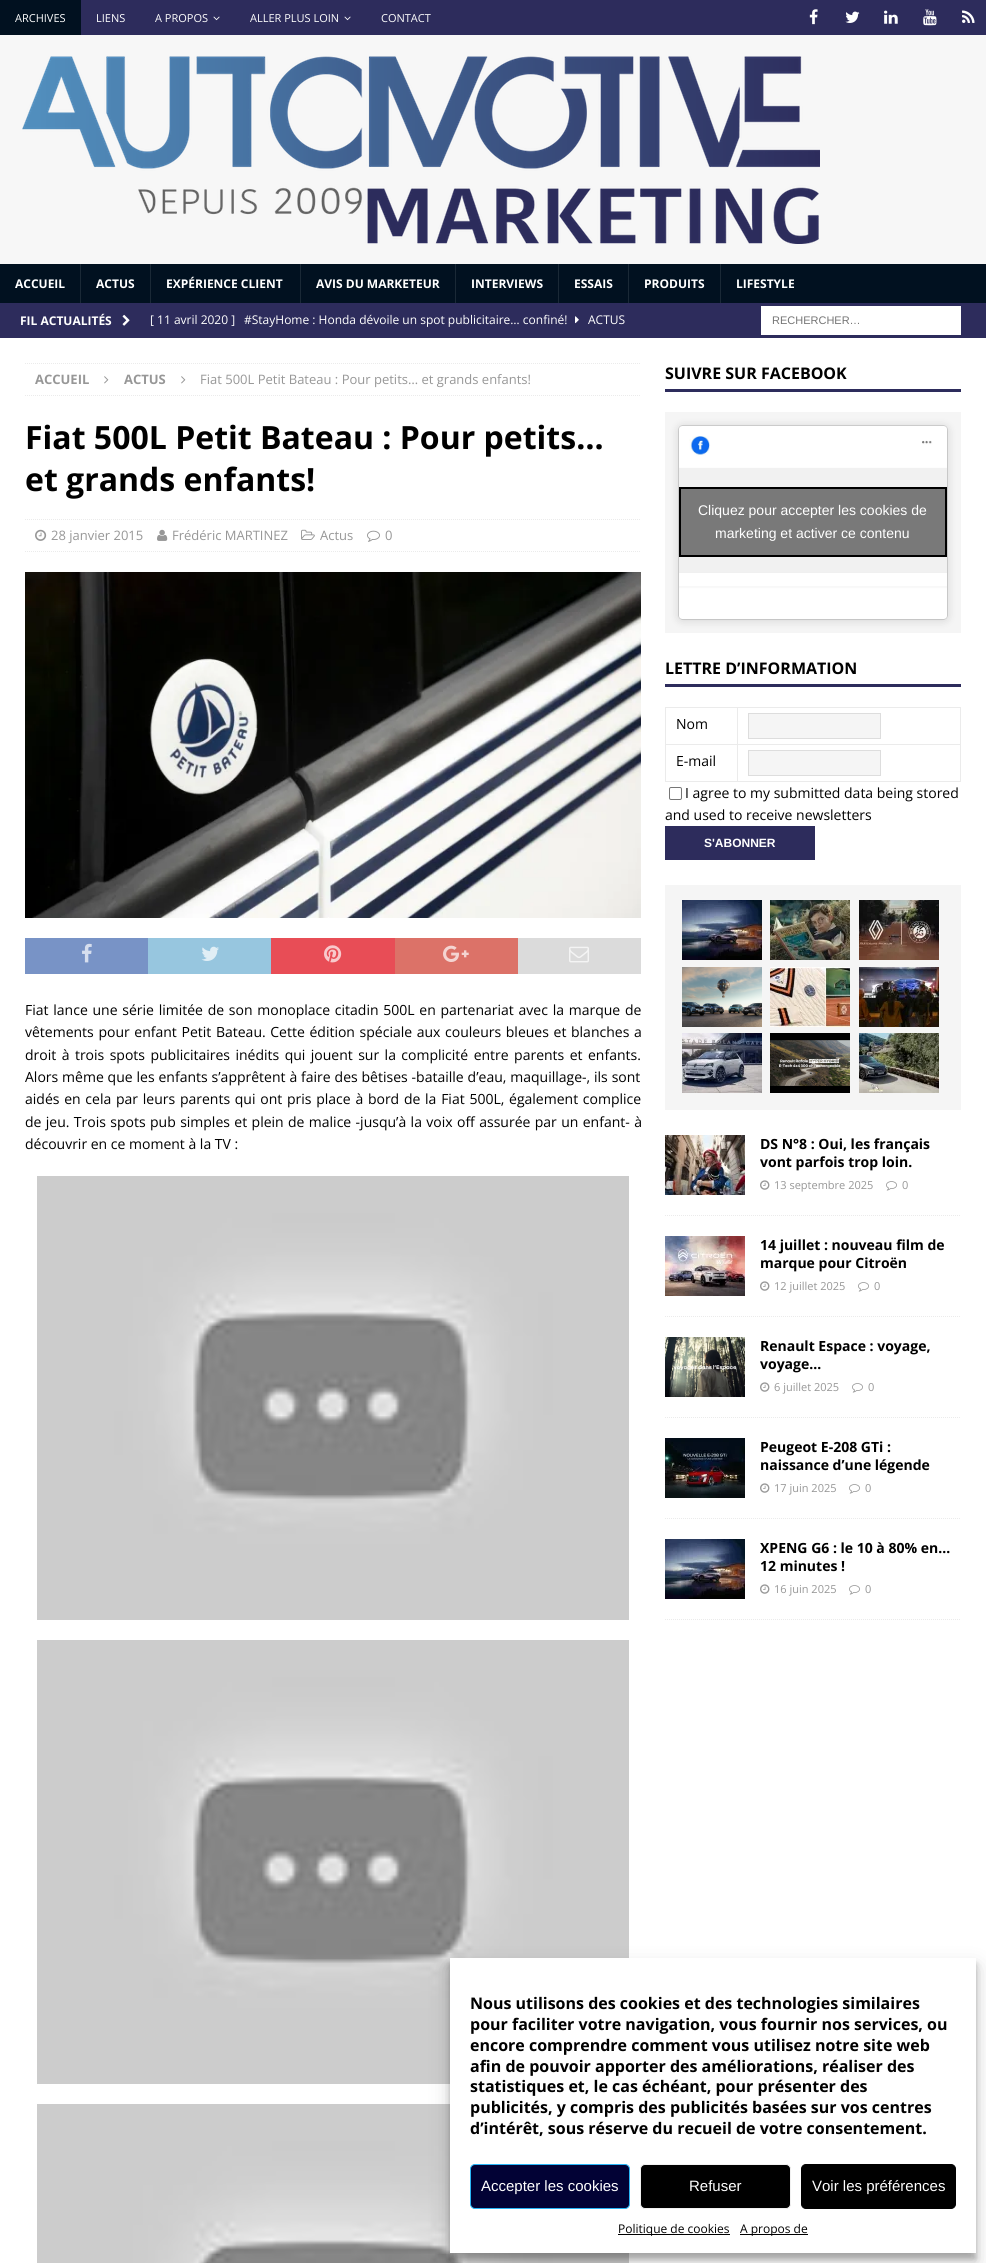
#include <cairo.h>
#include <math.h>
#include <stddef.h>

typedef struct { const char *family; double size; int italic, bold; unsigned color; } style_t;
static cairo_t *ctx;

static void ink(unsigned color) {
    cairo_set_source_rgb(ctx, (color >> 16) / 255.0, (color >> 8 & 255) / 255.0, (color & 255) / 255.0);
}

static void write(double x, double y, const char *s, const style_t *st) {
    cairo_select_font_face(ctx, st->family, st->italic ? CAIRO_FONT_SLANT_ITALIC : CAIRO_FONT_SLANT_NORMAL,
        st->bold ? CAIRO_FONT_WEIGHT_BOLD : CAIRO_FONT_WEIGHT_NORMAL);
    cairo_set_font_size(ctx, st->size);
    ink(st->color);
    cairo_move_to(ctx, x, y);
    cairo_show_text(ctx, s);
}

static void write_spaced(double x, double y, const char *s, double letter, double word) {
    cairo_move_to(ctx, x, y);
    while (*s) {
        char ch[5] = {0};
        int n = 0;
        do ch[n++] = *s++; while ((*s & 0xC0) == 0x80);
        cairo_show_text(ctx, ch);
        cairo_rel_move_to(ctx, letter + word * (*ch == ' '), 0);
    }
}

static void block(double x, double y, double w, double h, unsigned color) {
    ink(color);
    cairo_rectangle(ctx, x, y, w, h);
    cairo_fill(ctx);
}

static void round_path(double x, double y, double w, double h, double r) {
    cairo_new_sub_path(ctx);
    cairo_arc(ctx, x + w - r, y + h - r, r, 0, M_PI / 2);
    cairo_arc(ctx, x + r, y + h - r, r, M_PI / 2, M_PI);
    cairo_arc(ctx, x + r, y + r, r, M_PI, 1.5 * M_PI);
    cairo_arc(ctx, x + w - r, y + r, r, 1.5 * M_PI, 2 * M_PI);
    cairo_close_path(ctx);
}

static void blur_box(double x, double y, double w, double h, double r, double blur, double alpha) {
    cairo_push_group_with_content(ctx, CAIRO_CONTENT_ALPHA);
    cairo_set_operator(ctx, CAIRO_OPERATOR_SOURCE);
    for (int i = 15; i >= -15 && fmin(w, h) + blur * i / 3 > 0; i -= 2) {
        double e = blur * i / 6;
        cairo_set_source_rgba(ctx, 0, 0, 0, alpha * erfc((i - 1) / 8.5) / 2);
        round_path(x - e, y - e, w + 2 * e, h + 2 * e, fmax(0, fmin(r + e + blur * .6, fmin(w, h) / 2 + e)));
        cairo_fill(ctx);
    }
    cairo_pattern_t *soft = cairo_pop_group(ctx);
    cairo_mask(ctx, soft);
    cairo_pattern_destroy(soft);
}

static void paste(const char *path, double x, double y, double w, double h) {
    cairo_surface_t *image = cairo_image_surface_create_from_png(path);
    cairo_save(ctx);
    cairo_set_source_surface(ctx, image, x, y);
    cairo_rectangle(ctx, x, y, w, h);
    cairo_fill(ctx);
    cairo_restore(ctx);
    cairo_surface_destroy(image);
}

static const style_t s1 = {"Open Sans", 11, 0, 0, 0xffffff};
static const style_t s2 = {"Open Sans", 12, 0, 1, 0xffffff};
static const style_t s3 = {"Open Sans", 12, 0, 0, 0xffffff};
static const style_t s4 = {"Liberation Sans", 11, 0, 0, 0x757575};
static const style_t s5 = {"Open Sans", 13, 0, 1, 0x979797};
static const style_t s6 = {"Open Sans", 13, 0, 0, 0x979797};
static const style_t s7 = {"Open Sans", 32, 0, 1, 0x000000};
static const style_t s8 = {"Open Sans", 14, 0, 0, 0x000000};
static const style_t s9 = {"Open Sans", 16, 0, 1, 0x000000};
static const style_t s10 = {"Liberation Sans", 14, 0, 0, 0xffffff};
static const style_t s11 = {"Liberation Sans", 12, 0, 1, 0xffffff};
static const style_t s12 = {"Open Sans", 14, 0, 1, 0x000000};
static const style_t s13 = {"Open Sans", 11, 0, 0, 0x979797};
static const style_t s14 = {"Liberation Sans", 15, 0, 0, 0xffffff};
static const style_t s15 = {"Open Sans", 12, 0, 0, 0x000000};

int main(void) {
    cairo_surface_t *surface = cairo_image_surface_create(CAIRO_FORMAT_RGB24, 986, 2263);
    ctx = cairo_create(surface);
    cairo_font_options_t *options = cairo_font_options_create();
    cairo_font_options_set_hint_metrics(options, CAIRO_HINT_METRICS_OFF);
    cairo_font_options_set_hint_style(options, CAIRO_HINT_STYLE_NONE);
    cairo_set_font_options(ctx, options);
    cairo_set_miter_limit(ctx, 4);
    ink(0xf7f7f7);
    cairo_paint(ctx);
    block(81, 0, 905, 35, 0x2d2c5c);
    block(0, 0, 81, 35, 0x011120);
    write(15, 22, "ARCHIVES", &s1);
    write(96, 22, "LIENS", &s1);
    write(155, 22, "A PROPOS", &s1);
    paste("pic1.png", 213, 16, 7, 5);
    write(250, 22, "ALLER PLUS LOIN", &s1);
    paste("pic1.png", 344, 16, 7, 5);
    write(381, 22, "CONTACT", &s1);
    paste("pic2.png", 809, 9, 9, 16);
    paste("pic3.png", 845, 11, 15, 12);
    paste("pic4.png", 884, 10, 14, 14);
    paste("pic5.png", 923, 9, 14, 17);
    paste("pic6.png", 962, 10, 13, 13);
    paste("pic7.png", 22, 56, 798, 188);
    block(0, 264, 986, 39, 0x011120);
    write(15, 288, "ACCUEIL", &s2);
    block(80, 264, 1, 39, 0x1a2936);
    write(96, 288, "ACTUS", &s2);
    block(150, 264, 1, 39, 0x1a2936);
    write(166, 288, "EXPÉRIENCE CLIENT", &s2);
    block(300, 264, 1, 39, 0x1a2936);
    write(316, 288, "AVIS DU MARKETEUR", &s2);
    block(455, 264, 1, 39, 0x1a2936);
    write(471, 288, "INTERVIEWS", &s2);
    block(558, 264, 1, 39, 0x1a2936);
    write(574, 288, "ESSAIS", &s2);
    block(628, 264, 1, 39, 0x1a2936);
    write(644, 288, "PRODUITS", &s2);
    block(720, 264, 1, 39, 0x1a2936);
    write(736, 288, "LIFESTYLE", &s2);
    block(0, 303, 986, 35, 0x2d2c5c);
    write(20, 325, "FIL ACTUALITÉS", &s2);
    paste("pic8.png", 122, 314, 8, 12);
    write(150, 324, "[ 11 avril 2020 ]", &s3);
    write(244, 324, "#StayHome : Honda dévoile un spot publicitaire… confiné!", &s3);
    paste("pic9.png", 575, 316, 4, 8);
    write(588, 324, "ACTUS", &s3);
    block(761, 306, 200, 29, 0xffffff);
    write(772, 324, "RECHERCHER…", &s4);
    block(0, 338, 986, 1925, 0xffffff);
    cairo_new_path(ctx);
    cairo_move_to(ctx, 25, 363.5);
    cairo_line_to(ctx, 641, 363.5);
    ink(0xebebeb);
    cairo_set_line_width(ctx, 1);
    cairo_set_dash(ctx, (double[]){1, 1}, 2, 0);
    cairo_stroke(ctx);
    cairo_new_path(ctx);
    cairo_move_to(ctx, 25, 395.5);
    cairo_line_to(ctx, 641, 395.5);
    cairo_stroke(ctx);
    write(35, 384, "ACCUEIL", &s5);
    paste("pic10.png", 104, 376, 5, 8);
    write(124, 384, "ACTUS", &s5);
    paste("pic10.png", 181, 376, 5, 8);
    write(200, 384, "Fiat 500L Petit Bateau : Pour petits… et grands enfants!", &s6);
    write(25, 449, "Fiat 500L Petit Bateau : Pour petits…", &s7);
    write(25, 491, "et grands enfants!", &s7);
    cairo_new_path(ctx);
    cairo_move_to(ctx, 25, 519.5);
    cairo_line_to(ctx, 641, 519.5);
    ink(0xebebeb);
    cairo_stroke(ctx);
    cairo_new_path(ctx);
    cairo_move_to(ctx, 25, 551.5);
    cairo_line_to(ctx, 641, 551.5);
    cairo_stroke(ctx);
    paste("pic11.png", 35, 529, 12, 12);
    write(51, 540, "28 janvier 2015", &s6);
    paste("pic12.png", 157, 529, 11, 12);
    write(172, 540, "Frédéric MARTINEZ", &s6);
    paste("pic13.png", 301, 529, 14, 11);
    write(320, 540, "Actus", &s6);
    paste("pic14.png", 367, 530, 13, 12);
    write(385, 540, "0", &s6);
    paste("pic15.png", 25, 572, 616, 346);
    block(25, 938, 123, 36, 0x7893c6);
    paste("pic16.png", 82, 943, 10, 20);
    block(148, 938, 123, 36, 0x97c6df);
    paste("pic17.png", 201, 946, 18, 15);
    block(271, 938, 124, 36, 0xe84d56);
    paste("pic18.png", 324, 945, 18, 18);
    block(395, 938, 123, 36, 0xdc7268);
    paste("pic19.png", 443, 945, 26, 17);
    block(518, 938, 123, 36, 0xdbdbdb);
    paste("pic20.png", 569, 946, 20, 17);
    cairo_set_font_size(ctx, 14);
    ink(0x000000);
    write_spaced(25, 1015, "Fiat lance une série limitée de son monoplace citadin 500L en partenariat avec la marque de", 0, 1.1);
    write_spaced(25, 1037, "vêtements pour enfant Petit Bateau. Cette édition spéciale aux couleurs bleues et blanches a", 0, 1);
    write_spaced(25, 1060, "droit à trois spots publicitaires inédits qui jouent sur la complicité entre parents et enfants.", 0, 1.8);
    write_spaced(25, 1082, "Alors même que les enfants s’apprêtent à faire des bêtises -bataille d’eau, maquillage-, ils sont", 0, 0.25);
    write_spaced(25, 1104, "aidés en cela par leurs parents qui ont pris place à bord de la Fiat 500L, également complice", 0, 1.1);
    write_spaced(25, 1127, "de jeu. Trois spots pub simples et plein de malice -jusqu’à la voix off assurée par un enfant- à", 0, 0.75);
    write(25, 1149, "découvrir en ce moment à la TV :", &s8);
    paste("pic21.png", 37, 1176, 592, 444);
    paste("pic22.png", 37, 1640, 592, 444);
    paste("pic23.png", 37, 2104, 592, 159);
    block(665, 389, 296, 3, 0x2d2c5c);
    write(665, 379, "SUIVRE SUR FACEBOOK", &s9);
    block(665, 412, 296, 221, 0xf5f5f5);
    ink(0x000000);
    blur_box(679, 427, 268, 193, 3, 5, 0.15);
    blur_box(679, 426, 268, 193, 3, 0.5, 0.5);
    paste("pic24.png", 679, 426, 268, 193);
    ink(0x797979);
    cairo_rectangle(ctx, 680, 488, 266, 68);
    cairo_fill_preserve(ctx);
    ink(0x000000);
    cairo_set_line_width(ctx, 2);
    cairo_set_dash(ctx, NULL, 0, 0);
    cairo_stroke(ctx);
    write(698, 515, "Cliquez pour accepter les cookies de", &s10);
    write(715, 538, "marketing et activer ce contenu", &s10);
    block(665, 684, 296, 3, 0x2d2c5c);
    write(665, 674, "LETTRE D’INFORMATION", &s9);
    block(665, 707, 296, 1, 0xebebeb);
    block(665, 707, 1, 75, 0xebebeb);
    block(960, 707, 1, 75, 0xebebeb);
    block(737, 781, 224, 1, 0xebebeb);
    block(737, 744, 1, 38, 0xebebeb);
    block(737, 744, 224, 1, 0xebebeb);
    block(737, 707, 1, 38, 0xebebeb);
    block(665, 744, 73, 1, 0xebebeb);
    write(676, 729, "Nom", &s8);
    ink(0xf5f5f5);
    cairo_rectangle(ctx, 748.5, 713.5, 132, 25);
    cairo_fill_preserve(ctx);
    ink(0xdddddd);
    cairo_set_line_width(ctx, 1);
    cairo_stroke(ctx);
    block(665, 781, 73, 1, 0xebebeb);
    write(676, 766, "E-mail", &s8);
    ink(0xf5f5f5);
    cairo_rectangle(ctx, 748.5, 750.5, 132, 25);
    cairo_fill_preserve(ctx);
    ink(0xdddddd);
    cairo_stroke(ctx);
    round_path(669.5, 787.5, 12, 12, 1.5);
    ink(0x767676);
    cairo_stroke(ctx);
    write(685, 798, "I agree to my submitted data being stored", &s8);
    write(665, 820, "and used to receive newsletters", &s8);
    block(665, 826, 150, 34, 0x2d2c5c);
    write(704, 847, "S'ABONNER", &s11);
    block(665, 885, 296, 225, 0xf5f5f5);
    paste("pic25.png", 682, 900, 80, 60);
    paste("pic26.png", 770, 900, 80, 60);
    paste("pic27.png", 859, 900, 80, 60);
    paste("pic28.png", 682, 967, 80, 60);
    paste("pic29.png", 770, 967, 80, 60);
    paste("pic30.png", 859, 967, 80, 60);
    paste("pic31.png", 682, 1033, 80, 60);
    paste("pic32.png", 770, 1033, 80, 60);
    paste("pic33.png", 859, 1033, 80, 60);
    cairo_new_path(ctx);
    cairo_move_to(ctx, 665, 1215.5);
    cairo_line_to(ctx, 961, 1215.5);
    ink(0xebebeb);
    cairo_set_dash(ctx, (double[]){1, 1}, 2, 0);
    cairo_stroke(ctx);
    paste("pic34.png", 665, 1135, 80, 60);
    write(760, 1149, "DS N°8 : Oui, les français", &s12);
    write(760, 1167, "vont parfois trop loin.", &s12);
    paste("pic35.png", 760, 1180, 10, 10);
    write(774, 1189, "13 septembre 2025", &s13);
    paste("pic36.png", 886, 1181, 11, 10);
    write(902, 1189, "0", &s13);
    cairo_new_path(ctx);
    cairo_move_to(ctx, 665, 1316.5);
    cairo_line_to(ctx, 961, 1316.5);
    ink(0xebebeb);
    cairo_stroke(ctx);
    paste("pic37.png", 665, 1236, 80, 60);
    write(760, 1250, "14 juillet : nouveau film de", &s12);
    write(760, 1268, "marque pour Citroën", &s12);
    paste("pic35.png", 760, 1281, 10, 10);
    write(774, 1290, "12 juillet 2025", &s13);
    paste("pic36.png", 858, 1282, 11, 10);
    write(874, 1290, "0", &s13);
    cairo_new_path(ctx);
    cairo_move_to(ctx, 665, 1417.5);
    cairo_line_to(ctx, 961, 1417.5);
    ink(0xebebeb);
    cairo_stroke(ctx);
    paste("pic38.png", 665, 1337, 80, 60);
    write(760, 1351, "Renault Espace : voyage,", &s12);
    write(760, 1369, "voyage…", &s12);
    paste("pic35.png", 760, 1382, 10, 10);
    write(774, 1391, "6 juillet 2025", &s13);
    paste("pic36.png", 852, 1383, 11, 10);
    write(868, 1391, "0", &s13);
    cairo_new_path(ctx);
    cairo_move_to(ctx, 665, 1518.5);
    cairo_line_to(ctx, 961, 1518.5);
    ink(0xebebeb);
    cairo_stroke(ctx);
    paste("pic39.png", 665, 1438, 80, 60);
    write(760, 1452, "Peugeot E-208 GTi :", &s12);
    write(760, 1470, "naissance d’une légende", &s12);
    paste("pic35.png", 760, 1483, 10, 10);
    write(774, 1492, "17 juin 2025", &s13);
    paste("pic36.png", 849, 1484, 11, 10);
    write(865, 1492, "0", &s13);
    cairo_new_path(ctx);
    cairo_move_to(ctx, 665, 1619.5);
    cairo_line_to(ctx, 961, 1619.5);
    ink(0xebebeb);
    cairo_stroke(ctx);
    paste("pic25.png", 665, 1539, 80, 60);
    write(760, 1553, "XPENG G6 : le 10 à 80% en…", &s12);
    write(760, 1571, "12 minutes !", &s12);
    paste("pic35.png", 760, 1584, 10, 10);
    write(774, 1593, "16 juin 2025", &s13);
    paste("pic36.png", 849, 1585, 11, 10);
    write(865, 1593, "0", &s13);
    ink(0x000000);
    blur_box(450, 1964, 526, 295, 0, 3, 0.23);
    blur_box(450, 1968, 526, 295, 0, 10, 0.19);
    block(450, 1958, 526, 295, 0xffffff);
    write(470, 2009, "Nous utilisons des cookies et des technologies similaires", &s9);
    write(470, 2030, "pour faciliter votre navigation, vous fournir nos services, ou", &s9);
    write(470, 2051, "encore comprendre comment vous utilisez notre site web", &s9);
    write(470, 2072, "afin de pouvoir apporter des améliorations, réaliser des", &s9);
    write(470, 2092, "statistiques et, le cas échéant, pour présenter des", &s9);
    write(470, 2113, "publicités, y compris des publicités basées sur vos centres", &s9);
    write(470, 2134, "d’intérêt, sous réserve du recueil de votre consentement.", &s9);
    ink(0x020235);
    round_path(470.5, 2164.5, 159, 44, 4.5);
    cairo_fill_preserve(ctx);
    ink(0x29b6f6);
    cairo_set_dash(ctx, NULL, 0, 0);
    cairo_stroke(ctx);
    write(481, 2191, "Accepter les cookies", &s14);
    ink(0x000000);
    round_path(640.5, 2164.5, 150, 44, 4.5);
    cairo_fill_preserve(ctx);
    ink(0xf1f1f1);
    cairo_stroke(ctx);
    write(689, 2191, "Refuser", &s14);
    ink(0x000000);
    round_path(801.5, 2164.5, 154, 44, 4.5);
    cairo_fill_preserve(ctx);
    cairo_stroke(ctx);
    write(812, 2191, "Voir les préférences", &s14);
    block(618, 2234, 112, 1, 0x000000);
    write(618, 2233, "Politique de cookies", &s15);
    block(740, 2234, 68, 1, 0x000000);
    write(740, 2233, "A propos de", &s15);
    cairo_surface_write_to_png(surface, "screenshot.png");
    cairo_font_options_destroy(options);
    cairo_destroy(ctx);
    cairo_surface_destroy(surface);
    return 0;
}
